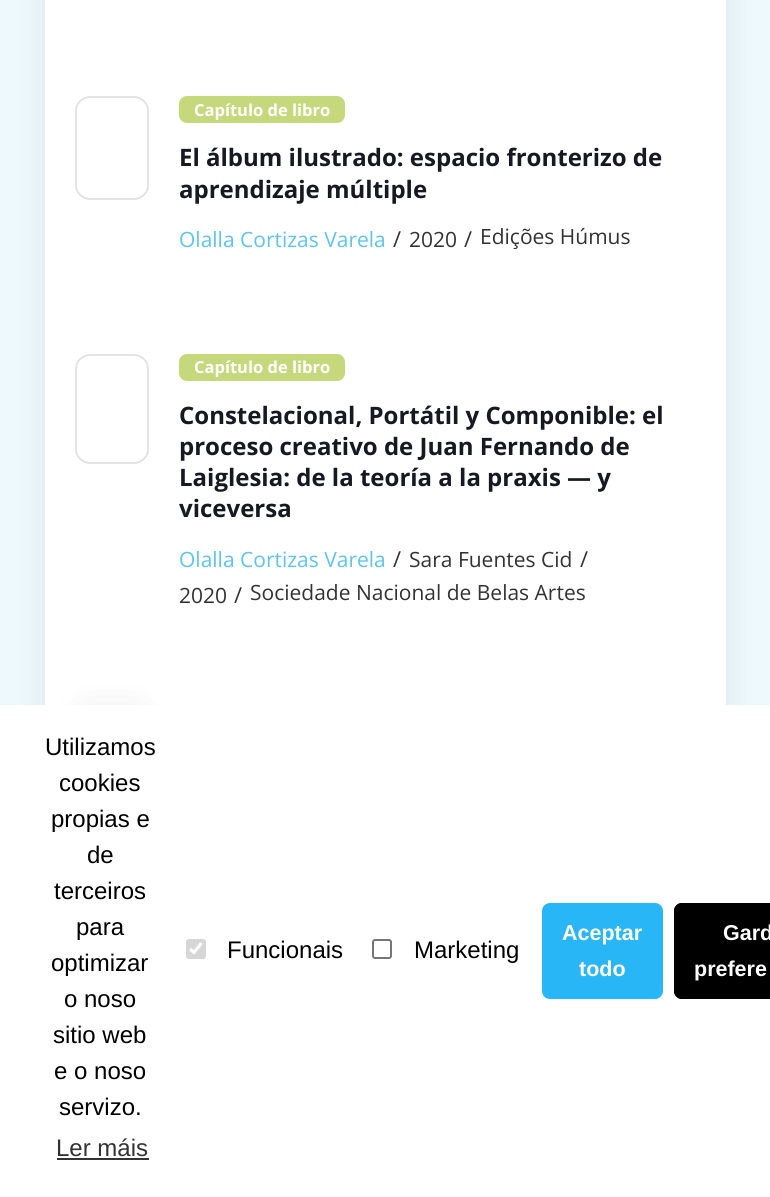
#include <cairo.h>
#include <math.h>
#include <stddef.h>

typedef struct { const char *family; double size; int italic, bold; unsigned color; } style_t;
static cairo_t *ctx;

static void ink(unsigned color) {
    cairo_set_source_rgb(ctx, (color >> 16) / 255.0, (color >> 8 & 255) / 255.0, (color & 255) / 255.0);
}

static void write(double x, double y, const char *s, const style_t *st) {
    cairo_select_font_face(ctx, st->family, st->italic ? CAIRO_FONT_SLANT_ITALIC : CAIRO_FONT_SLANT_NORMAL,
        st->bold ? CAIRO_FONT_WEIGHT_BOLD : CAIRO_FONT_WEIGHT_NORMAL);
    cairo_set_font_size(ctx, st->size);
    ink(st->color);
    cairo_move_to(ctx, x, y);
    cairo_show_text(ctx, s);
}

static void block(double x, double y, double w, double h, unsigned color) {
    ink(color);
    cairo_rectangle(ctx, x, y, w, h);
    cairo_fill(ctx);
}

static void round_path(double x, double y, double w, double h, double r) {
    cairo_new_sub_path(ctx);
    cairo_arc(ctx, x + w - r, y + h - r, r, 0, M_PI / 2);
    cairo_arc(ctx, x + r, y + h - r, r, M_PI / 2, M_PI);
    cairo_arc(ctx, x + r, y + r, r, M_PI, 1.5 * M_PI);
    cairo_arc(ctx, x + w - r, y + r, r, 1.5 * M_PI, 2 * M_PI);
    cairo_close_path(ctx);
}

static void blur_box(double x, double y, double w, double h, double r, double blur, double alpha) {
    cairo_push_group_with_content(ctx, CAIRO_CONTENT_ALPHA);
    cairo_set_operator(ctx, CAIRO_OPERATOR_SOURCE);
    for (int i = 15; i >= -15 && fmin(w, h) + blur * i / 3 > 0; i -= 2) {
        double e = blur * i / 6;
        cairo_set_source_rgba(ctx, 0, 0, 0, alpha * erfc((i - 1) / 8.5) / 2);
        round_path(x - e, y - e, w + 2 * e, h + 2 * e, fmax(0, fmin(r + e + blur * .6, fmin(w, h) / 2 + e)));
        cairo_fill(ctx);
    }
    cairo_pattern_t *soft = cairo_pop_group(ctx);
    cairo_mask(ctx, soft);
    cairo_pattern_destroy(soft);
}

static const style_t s1 = {"Open Sans", 16.5, 0, 1, 0xffffff};
static const style_t s2 = {"Open Sans", 24, 0, 1, 0x161922};
static const style_t s3 = {"Open Sans", 21, 0, 0, 0x5cc4f1};
static const style_t s4 = {"Open Sans", 22, 0, 0, 0x333333};
static const style_t s5 = {"Open Sans", 21, 0, 0, 0x333333};
static const style_t s6 = {"Liberation Sans", 24, 0, 0, 0x000000};
static const style_t s7 = {"Liberation Sans", 24, 0, 0, 0x333333};
static const style_t s8 = {"Liberation Sans", 21.5, 0, 1, 0xffffff};

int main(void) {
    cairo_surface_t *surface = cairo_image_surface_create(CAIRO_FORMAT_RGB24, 770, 1197);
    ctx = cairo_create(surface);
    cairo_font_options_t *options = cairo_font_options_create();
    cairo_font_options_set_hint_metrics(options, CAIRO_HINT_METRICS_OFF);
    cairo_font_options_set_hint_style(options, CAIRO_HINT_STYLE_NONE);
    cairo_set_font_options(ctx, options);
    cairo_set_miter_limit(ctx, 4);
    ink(0xeef9fd);
    cairo_paint(ctx);
    ink(0x000000);
    blur_box(45, -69, 681, 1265, 15, 18, 0.08);
    block(45, 0, 681, 705, 0xffffff);
    round_path(76, 97, 72, 102, 14);
    ink(0xe3e3e3);
    cairo_stroke(ctx);
    ink(0xc5d97c);
    round_path(179, 96, 166, 27, 8);
    cairo_fill(ctx);
    write(194, 116, "Capítulo de libro", &s1);
    write(179, 166, "El álbum ilustrado: espacio fronterizo de", &s2);
    write(179, 198, "aprendizaje múltiple", &s2);
    write(179, 247, "Olalla Cortizas Varela", &s3);
    write(393, 247, "/", &s4);
    write(409, 247, "2020", &s5);
    write(464, 247, "/", &s4);
    write(480, 244, "Edições Húmus", &s5);
    round_path(76, 355, 72, 108, 14);
    ink(0xe3e3e3);
    cairo_stroke(ctx);
    ink(0xc5d97c);
    round_path(179, 354, 166, 27, 8);
    cairo_fill(ctx);
    write(194, 373, "Capítulo de libro", &s1);
    write(179, 424, "Constelacional, Portátil y Componible: el", &s2);
    write(179, 455, "proceso creativo de Juan Fernando de", &s2);
    write(179, 486, "Laiglesia: de la teoría a la praxis — y", &s2);
    write(179, 517, "viceversa", &s2);
    write(179, 567, "Olalla Cortizas Varela", &s3);
    write(393, 567, "/", &s4);
    write(409, 567, "Sara Fuentes Cid", &s5);
    write(580, 567, "/", &s4);
    write(179, 603, "2020", &s5);
    write(234, 603, "/", &s4);
    write(250, 600, "Sociedade Nacional de Belas Artes", &s5);
    ink(0x000000);
    blur_box(75, 710, 74, 109, 15, 18, 0.08);
    block(0, 705, 770, 492, 0xffffff);
    write(45, 755, "Utilizamos", &s6);
    write(59, 791, "cookies", &s6);
    write(51, 827, "propias e", &s6);
    write(87, 863, "de", &s6);
    write(54, 899, "terceiros", &s6);
    write(76, 935, "para", &s6);
    write(51, 971, "optimizar", &s6);
    write(64, 1007, "o noso", &s6);
    write(53, 1043, "sitio web", &s6);
    write(54, 1079, "e o noso", &s6);
    write(59, 1115, "servizo.", &s6);
    write(56, 1156, "Ler máis", &s7);
    block(57, 1158, 92, 2, 0x333333);
    ink(0xd6d6d6);
    round_path(186, 939, 20, 20, 3);
    cairo_fill(ctx);
    cairo_new_path(ctx);
    cairo_move_to(ctx, 190, 949);
    cairo_line_to(ctx, 194, 952.5);
    cairo_line_to(ctx, 201.5, 943);
    ink(0xffffff);
    cairo_set_line_width(ctx, 3.1);
    cairo_stroke(ctx);
    write(227, 958, "Funcionais", &s6);
    round_path(373, 940, 18, 18, 2);
    ink(0x767676);
    cairo_set_line_width(ctx, 2);
    cairo_stroke(ctx);
    write(414, 958, "Marketing", &s6);
    ink(0x29b6f6);
    round_path(543.5, 904.5, 118, 93, 6.5);
    cairo_fill_preserve(ctx);
    cairo_set_line_width(ctx, 3);
    cairo_stroke(ctx);
    write(562, 940, "Aceptar", &s8);
    write(579, 976, "todo", &s8);
    ink(0x000000);
    cairo_new_path(ctx);
    cairo_move_to(ctx, 682, 903);
    cairo_line_to(ctx, 770, 903);
    cairo_line_to(ctx, 770, 999);
    cairo_line_to(ctx, 682, 999);
    cairo_curve_to(ctx, 677.5, 999, 674, 995.5, 674, 991);
    cairo_line_to(ctx, 674, 911);
    cairo_curve_to(ctx, 674, 906.5, 677.5, 903, 682, 903);
    cairo_close_path(ctx);
    cairo_fill(ctx);
    round_path(675.5, 904.5, 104, 93, 6.5);
    cairo_stroke(ctx);
    write(723, 940, "Gard", &s8);
    write(694, 976, "prefere", &s8);
    cairo_surface_write_to_png(surface, "screenshot.png");
    cairo_font_options_destroy(options);
    cairo_destroy(ctx);
    cairo_surface_destroy(surface);
    return 0;
}
